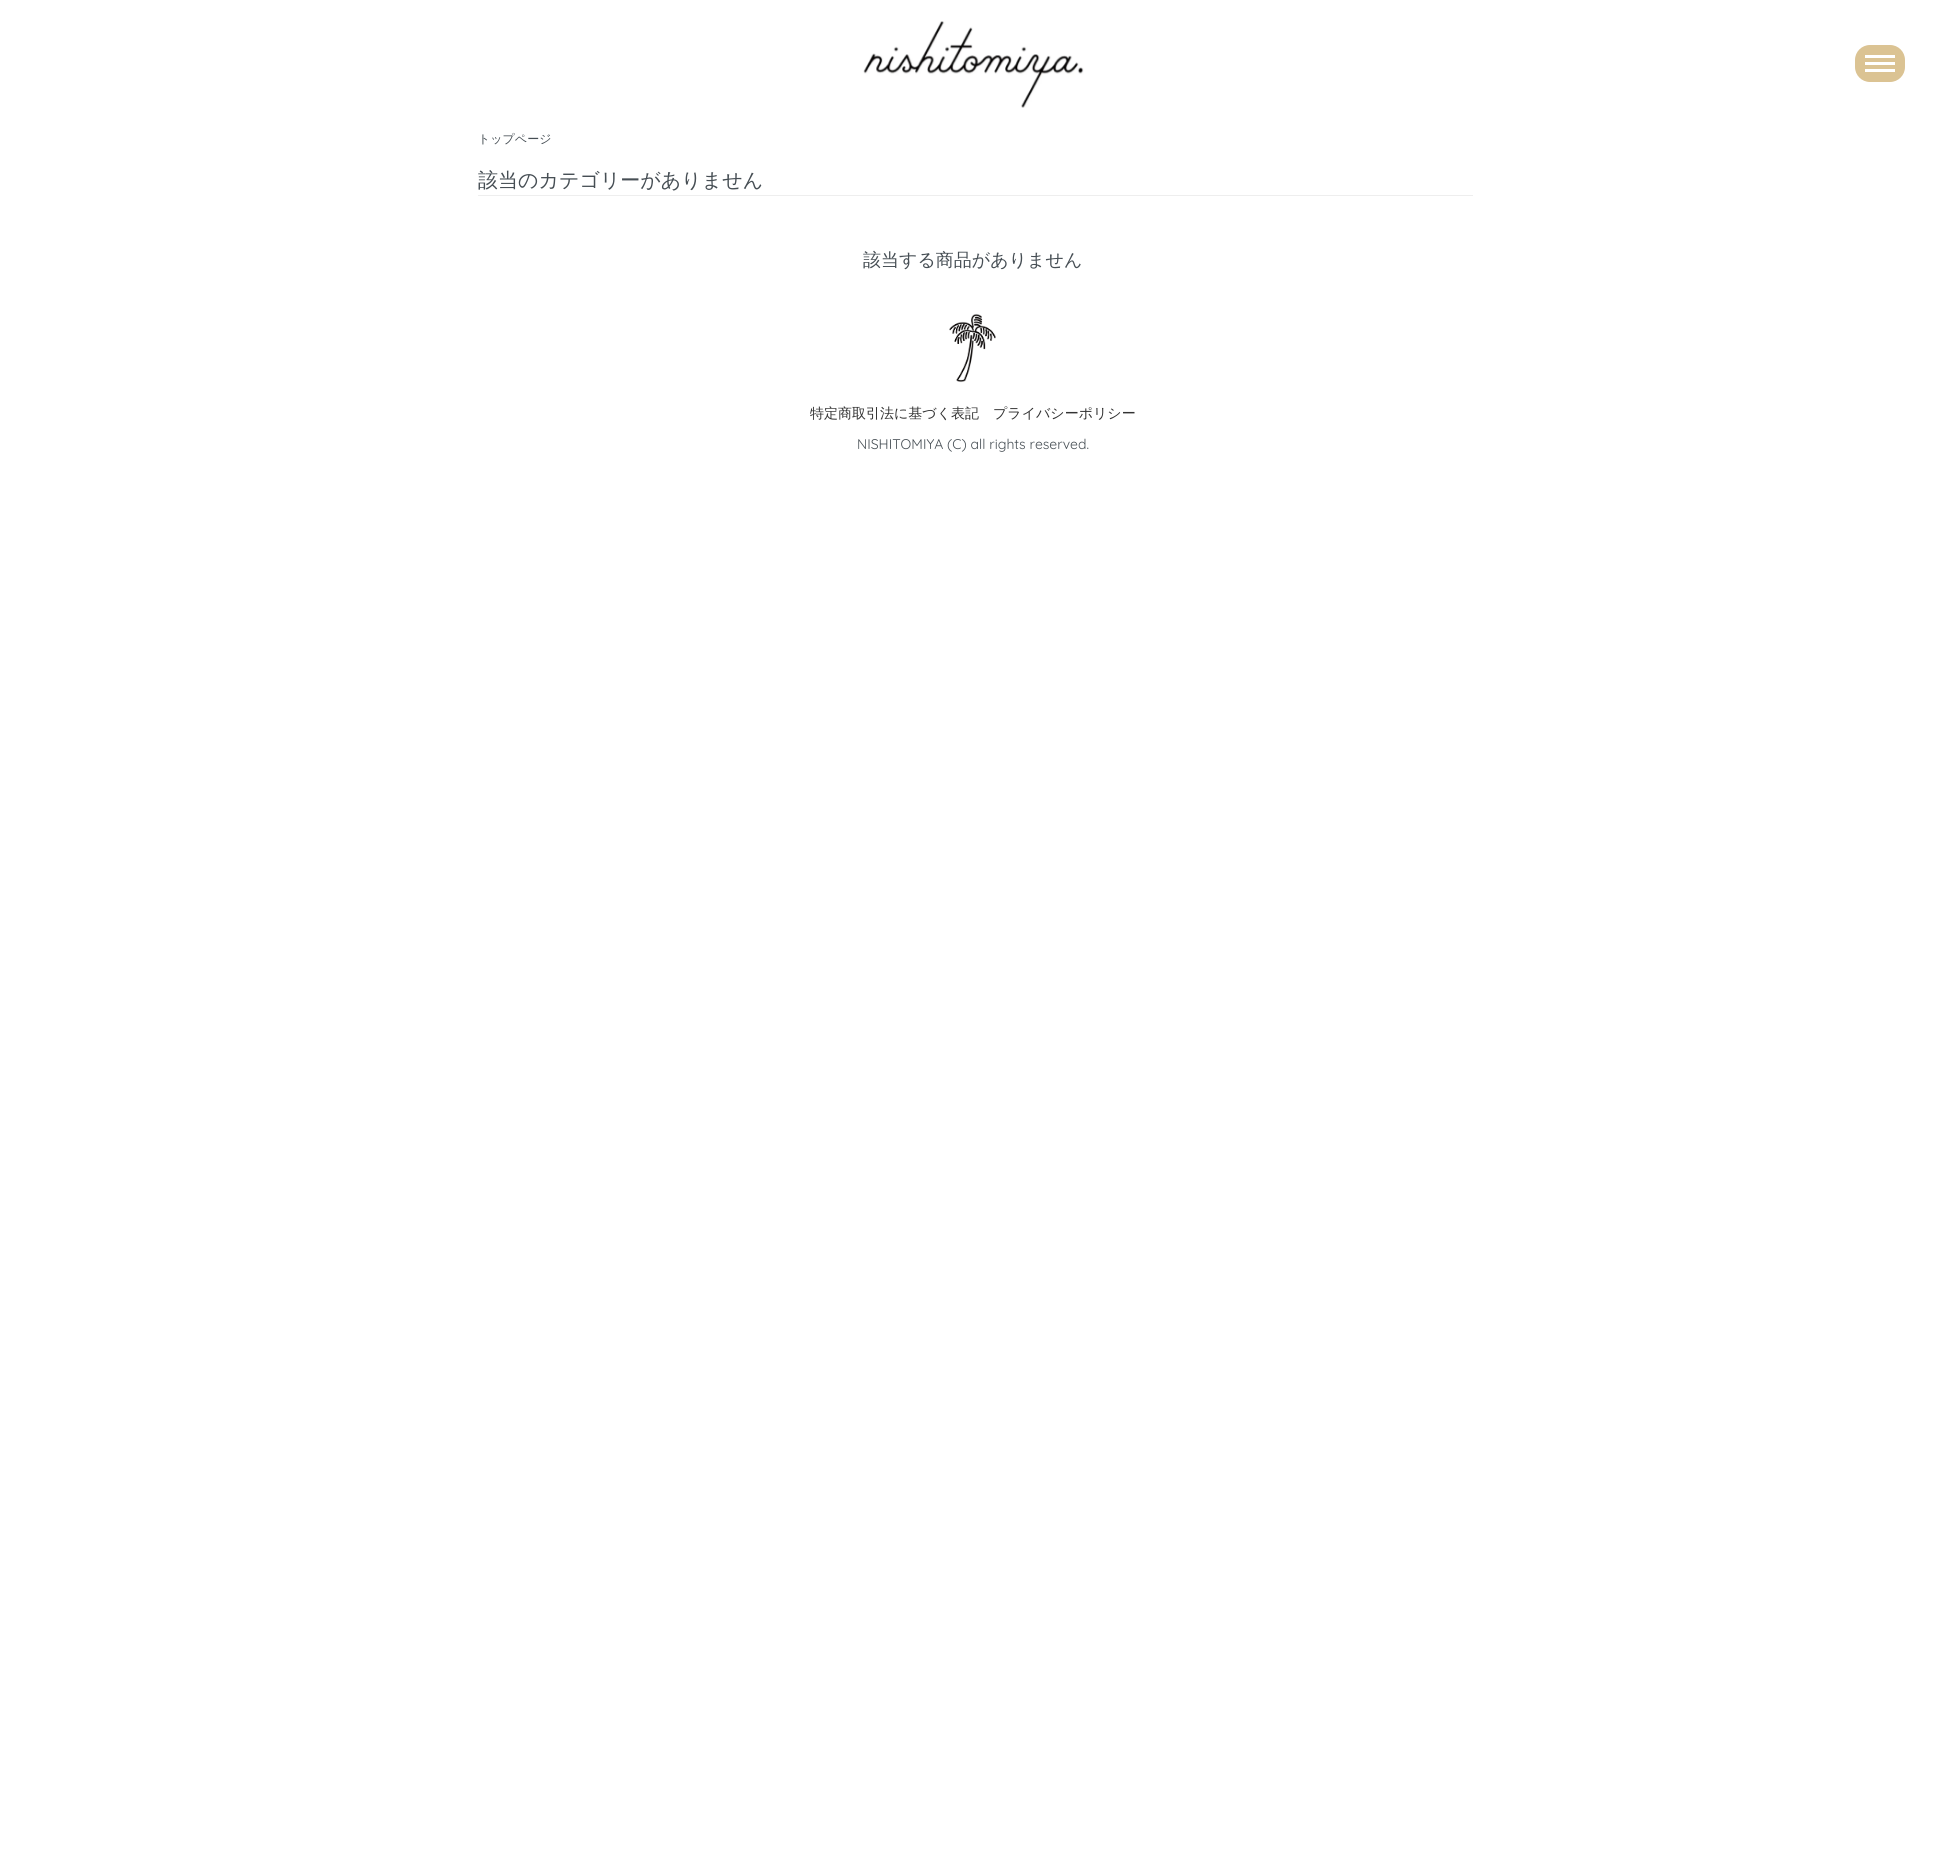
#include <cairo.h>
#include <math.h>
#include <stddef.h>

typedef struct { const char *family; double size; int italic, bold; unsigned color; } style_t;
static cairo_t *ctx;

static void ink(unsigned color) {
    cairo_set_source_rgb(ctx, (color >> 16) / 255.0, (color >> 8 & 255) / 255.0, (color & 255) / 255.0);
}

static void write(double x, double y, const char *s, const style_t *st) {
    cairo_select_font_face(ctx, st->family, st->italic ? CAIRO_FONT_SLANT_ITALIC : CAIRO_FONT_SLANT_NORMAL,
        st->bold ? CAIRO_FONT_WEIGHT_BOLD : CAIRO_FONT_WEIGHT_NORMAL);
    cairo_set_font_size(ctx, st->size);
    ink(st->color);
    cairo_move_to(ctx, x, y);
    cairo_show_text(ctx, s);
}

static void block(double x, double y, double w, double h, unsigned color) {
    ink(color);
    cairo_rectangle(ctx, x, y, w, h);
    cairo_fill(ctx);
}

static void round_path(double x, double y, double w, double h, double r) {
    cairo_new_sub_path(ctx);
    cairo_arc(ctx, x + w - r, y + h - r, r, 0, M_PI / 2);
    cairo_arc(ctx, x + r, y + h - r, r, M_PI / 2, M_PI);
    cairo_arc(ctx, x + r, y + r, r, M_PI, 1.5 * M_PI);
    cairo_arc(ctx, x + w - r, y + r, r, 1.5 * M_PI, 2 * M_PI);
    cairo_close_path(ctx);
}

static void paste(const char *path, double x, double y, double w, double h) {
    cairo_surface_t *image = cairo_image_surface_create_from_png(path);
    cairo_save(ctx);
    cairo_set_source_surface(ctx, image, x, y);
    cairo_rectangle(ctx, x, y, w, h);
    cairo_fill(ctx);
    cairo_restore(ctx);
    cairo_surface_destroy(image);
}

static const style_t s1 = {"WenQuanYi Zen Hei Medium", 12, 0, 0, 0x464e54};
static const style_t s2 = {"WenQuanYi Zen Hei Medium", 20, 0, 0, 0x464e54};
static const style_t s3 = {"WenQuanYi Zen Hei Medium", 18, 0, 0, 0x464e54};
static const style_t s4 = {"WenQuanYi Zen Hei Medium", 14, 0, 0, 0x333333};
static const style_t s5 = {"Quicksand", 14, 0, 0, 0x464e54};

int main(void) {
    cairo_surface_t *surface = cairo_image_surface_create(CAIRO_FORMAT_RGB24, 1945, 1869);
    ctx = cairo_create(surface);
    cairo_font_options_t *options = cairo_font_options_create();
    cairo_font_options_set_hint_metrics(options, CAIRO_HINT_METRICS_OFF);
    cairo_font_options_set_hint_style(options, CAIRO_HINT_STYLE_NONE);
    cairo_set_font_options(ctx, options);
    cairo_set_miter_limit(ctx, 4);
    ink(0xffffff);
    cairo_paint(ctx);
    ink(0xdbc393);
    round_path(1855, 45, 50, 37, 15);
    cairo_fill(ctx);
    block(1865, 55, 30, 3, 0xffffff);
    block(1865, 62, 30, 3, 0xffffff);
    block(1865, 69, 30, 3, 0xffffff);
    paste("pic1.png", 863, 21, 221, 87);
    write(478, 143, "トップページ", &s1);
    block(478, 195, 995, 1, 0xeeeeee);
    write(478, 187, "該当のカテゴリーがありません", &s2);
    write(863, 266, "該当する商品がありません", &s3);
    paste("pic2.png", 949, 313, 47, 70);
    write(810, 418, "特定商取引法に基づく表記", &s4);
    write(993, 418, "プライバシーポリシー", &s4);
    write(857, 449, "NISHITOMIYA (C) all rights reserved.", &s5);
    cairo_surface_write_to_png(surface, "screenshot.png");
    cairo_font_options_destroy(options);
    cairo_destroy(ctx);
    cairo_surface_destroy(surface);
    return 0;
}
